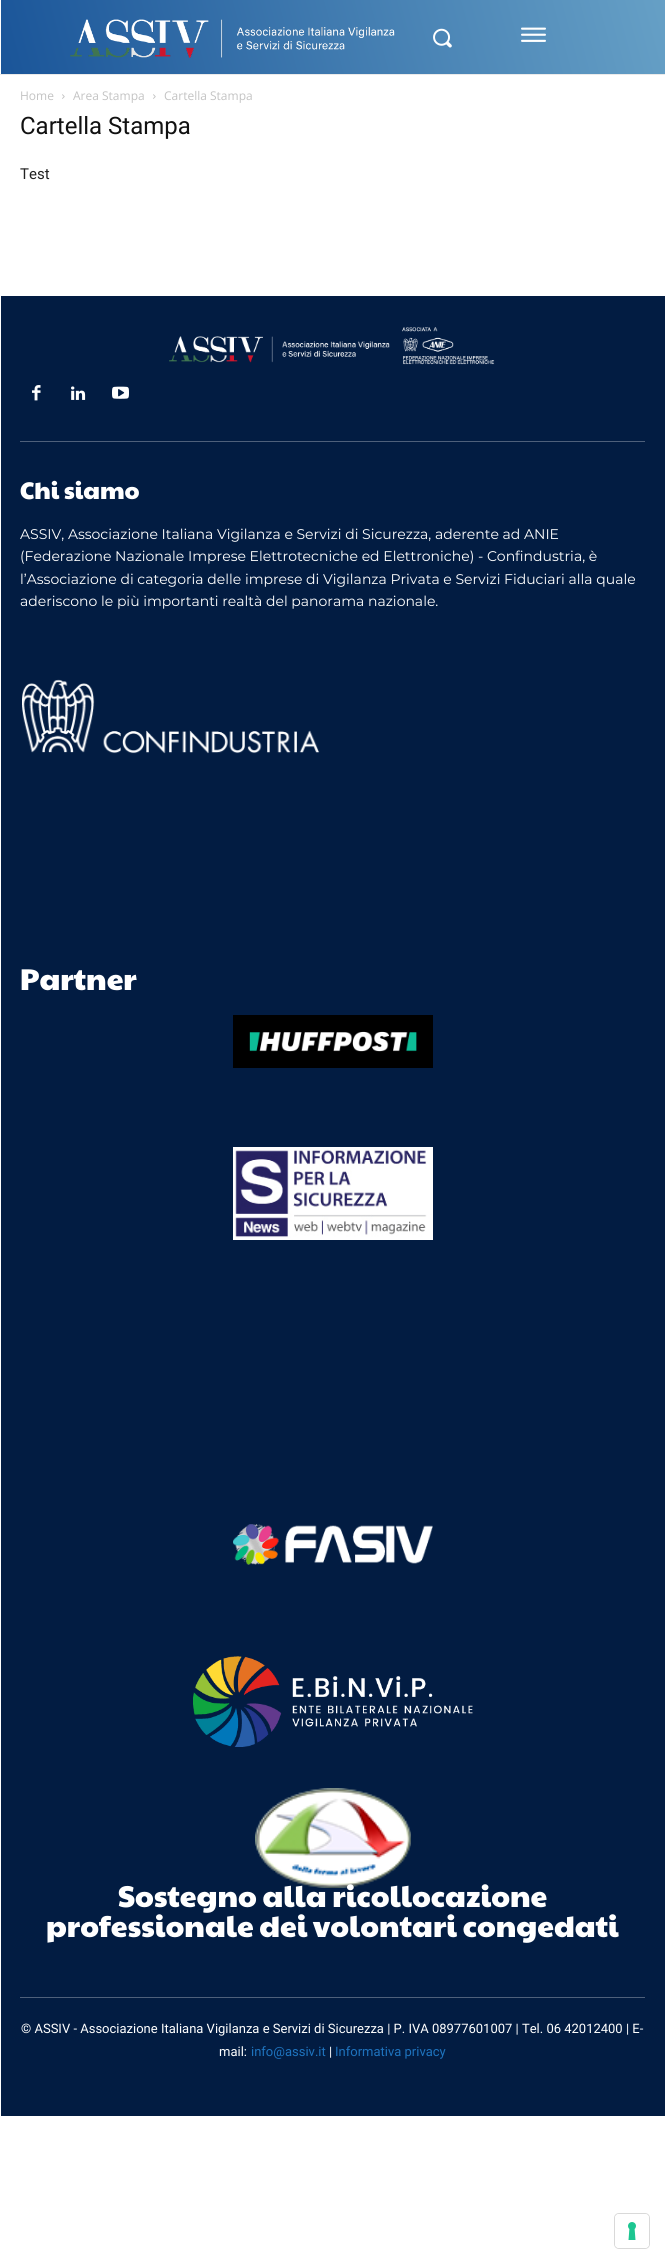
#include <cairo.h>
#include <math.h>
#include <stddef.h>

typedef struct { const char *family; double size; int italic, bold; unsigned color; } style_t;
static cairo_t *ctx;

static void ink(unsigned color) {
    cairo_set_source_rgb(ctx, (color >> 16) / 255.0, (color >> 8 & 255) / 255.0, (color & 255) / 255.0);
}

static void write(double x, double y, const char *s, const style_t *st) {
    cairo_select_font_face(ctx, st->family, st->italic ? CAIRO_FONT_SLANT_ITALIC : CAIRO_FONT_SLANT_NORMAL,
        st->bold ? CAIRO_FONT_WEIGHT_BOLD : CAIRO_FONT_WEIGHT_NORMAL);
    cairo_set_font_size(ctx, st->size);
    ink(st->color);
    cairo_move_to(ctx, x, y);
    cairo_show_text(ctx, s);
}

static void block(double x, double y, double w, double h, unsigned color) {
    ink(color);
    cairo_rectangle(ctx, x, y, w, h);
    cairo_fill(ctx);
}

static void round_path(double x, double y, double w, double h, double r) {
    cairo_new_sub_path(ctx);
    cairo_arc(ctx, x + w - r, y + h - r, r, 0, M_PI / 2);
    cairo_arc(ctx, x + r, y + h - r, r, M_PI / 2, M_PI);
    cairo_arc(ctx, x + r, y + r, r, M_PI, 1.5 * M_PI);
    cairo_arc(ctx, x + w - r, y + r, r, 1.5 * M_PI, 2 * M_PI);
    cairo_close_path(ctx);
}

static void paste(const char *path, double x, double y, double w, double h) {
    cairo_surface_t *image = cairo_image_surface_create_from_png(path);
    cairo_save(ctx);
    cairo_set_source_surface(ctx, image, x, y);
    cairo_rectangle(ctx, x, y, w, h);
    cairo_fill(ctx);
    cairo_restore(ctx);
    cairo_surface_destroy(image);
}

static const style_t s1 = {"Open Sans", 12, 0, 0, 0xc3c3c3};
static const style_t s2 = {"Roboto", 24, 0, 0, 0x111111};
static const style_t s3 = {"Roboto", 15, 0, 0, 0x222222};
static const style_t s4 = {"Paytone One", 24, 0, 0, 0xffffff};
static const style_t s5 = {"Montserrat", 14, 0, 0, 0xffffff};
static const style_t s6 = {"Paytone One", 30, 0, 0, 0xffffff};
static const style_t s7 = {"Roboto", 13, 0, 0, 0xffffff};
static const style_t s8 = {"Roboto", 13, 0, 0, 0x1e73be};

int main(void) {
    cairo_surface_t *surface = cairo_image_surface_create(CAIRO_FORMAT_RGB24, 665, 2264);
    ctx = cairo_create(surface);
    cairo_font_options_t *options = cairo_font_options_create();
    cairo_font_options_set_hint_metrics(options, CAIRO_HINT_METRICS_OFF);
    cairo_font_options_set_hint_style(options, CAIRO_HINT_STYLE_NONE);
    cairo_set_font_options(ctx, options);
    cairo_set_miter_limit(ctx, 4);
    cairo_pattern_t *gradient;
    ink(0xffffff);
    cairo_paint(ctx);
    block(0, 74, 665, 1, 0xeaeaea);
    gradient = cairo_pattern_create_linear(14, 123, 652, -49);
    cairo_pattern_add_color_stop_rgba(gradient, 0, 0.102, 0.333, 0.6, 1);
    cairo_pattern_add_color_stop_rgba(gradient, 1, 0.4, 0.627, 0.776, 1);
    cairo_set_source(ctx, gradient);
    cairo_pattern_destroy(gradient);
    cairo_rectangle(ctx, 1, 0, 664, 74);
    cairo_fill(ctx);
    paste("pic1.png", 70, 19, 325, 39);
    paste("pic2.png", 433, 28, 19, 20);
    paste("pic3.png", 521, 27, 25, 15);
    write(20, 100, "Home", &s1);
    paste("pic4.png", 62, 94, 3, 5);
    write(73, 100, "Area Stampa", &s1);
    paste("pic4.png", 153, 94, 3, 5);
    write(164, 100, "Cartella Stampa", &s1);
    write(20, 134, "Cartella Stampa", &s2);
    write(20, 179, "Test", &s3);
    block(1, 296, 664, 1820, 0x021c42);
    block(20, 441, 625, 1, 0x4e607b);
    paste("pic5.png", 169, 327, 326, 38);
    paste("pic6.png", 32, 385, 9, 16);
    paste("pic7.png", 71, 386, 15, 14);
    paste("pic8.png", 112, 386, 17, 13);
    write(20, 499, "Chi siamo", &s4);
    write(20, 539, "ASSIV, Associazione Italiana Vigilanza e Servizi di Sicurezza, aderente ad ANIE", &s5);
    write(20, 561, "(Federazione Nazionale Imprese Elettrotecniche ed Elettroniche) - Confindustria, è", &s5);
    write(20, 584, "l’Associazione di categoria delle imprese di Vigilanza Privata e Servizi Fiduciari alla quale", &s5);
    write(20, 606, "aderiscono le più importanti realtà del panorama nazionale.", &s5);
    paste("pic9.png", 22, 679, 298, 75);
    write(20, 990, "Partner", &s6);
    paste("pic10.png", 233, 1015, 200, 53);
    paste("pic11.png", 233, 1147, 200, 93);
    paste("pic12.png", 233, 1524, 200, 41);
    paste("pic13.png", 193, 1656, 280, 91);
    paste("pic14.png", 255, 1788, 156, 100);
    write(118, 1907, "Sostegno alla ricollocazione", &s6);
    write(46, 1937, "professionale dei volontari congedati", &s6);
    block(20, 1997, 625, 1, 0x4e607b);
    write(21, 2033, "© ASSIV - Associazione Italiana Vigilanza e Servizi di Sicurezza | P. IVA 08977601007 | Tel. 06 42012400 | E-", &s7);
    write(219, 2056, "mail:", &s7);
    write(251, 2056, "info@assiv.it", &s8);
    write(329, 2056, "|", &s7);
    write(335, 2056, "Informativa privacy", &s8);
    round_path(614.5, 2213.5, 35, 35, 4.5);
    ink(0xd9d9d9);
    cairo_set_line_width(ctx, 1);
    cairo_stroke(ctx);
    ink(0xffffff);
    round_path(615, 2214, 34, 34, 4);
    cairo_fill(ctx);
    paste("pic15.png", 628, 2222, 8, 18);
    cairo_surface_write_to_png(surface, "screenshot.png");
    cairo_font_options_destroy(options);
    cairo_destroy(ctx);
    cairo_surface_destroy(surface);
    return 0;
}
